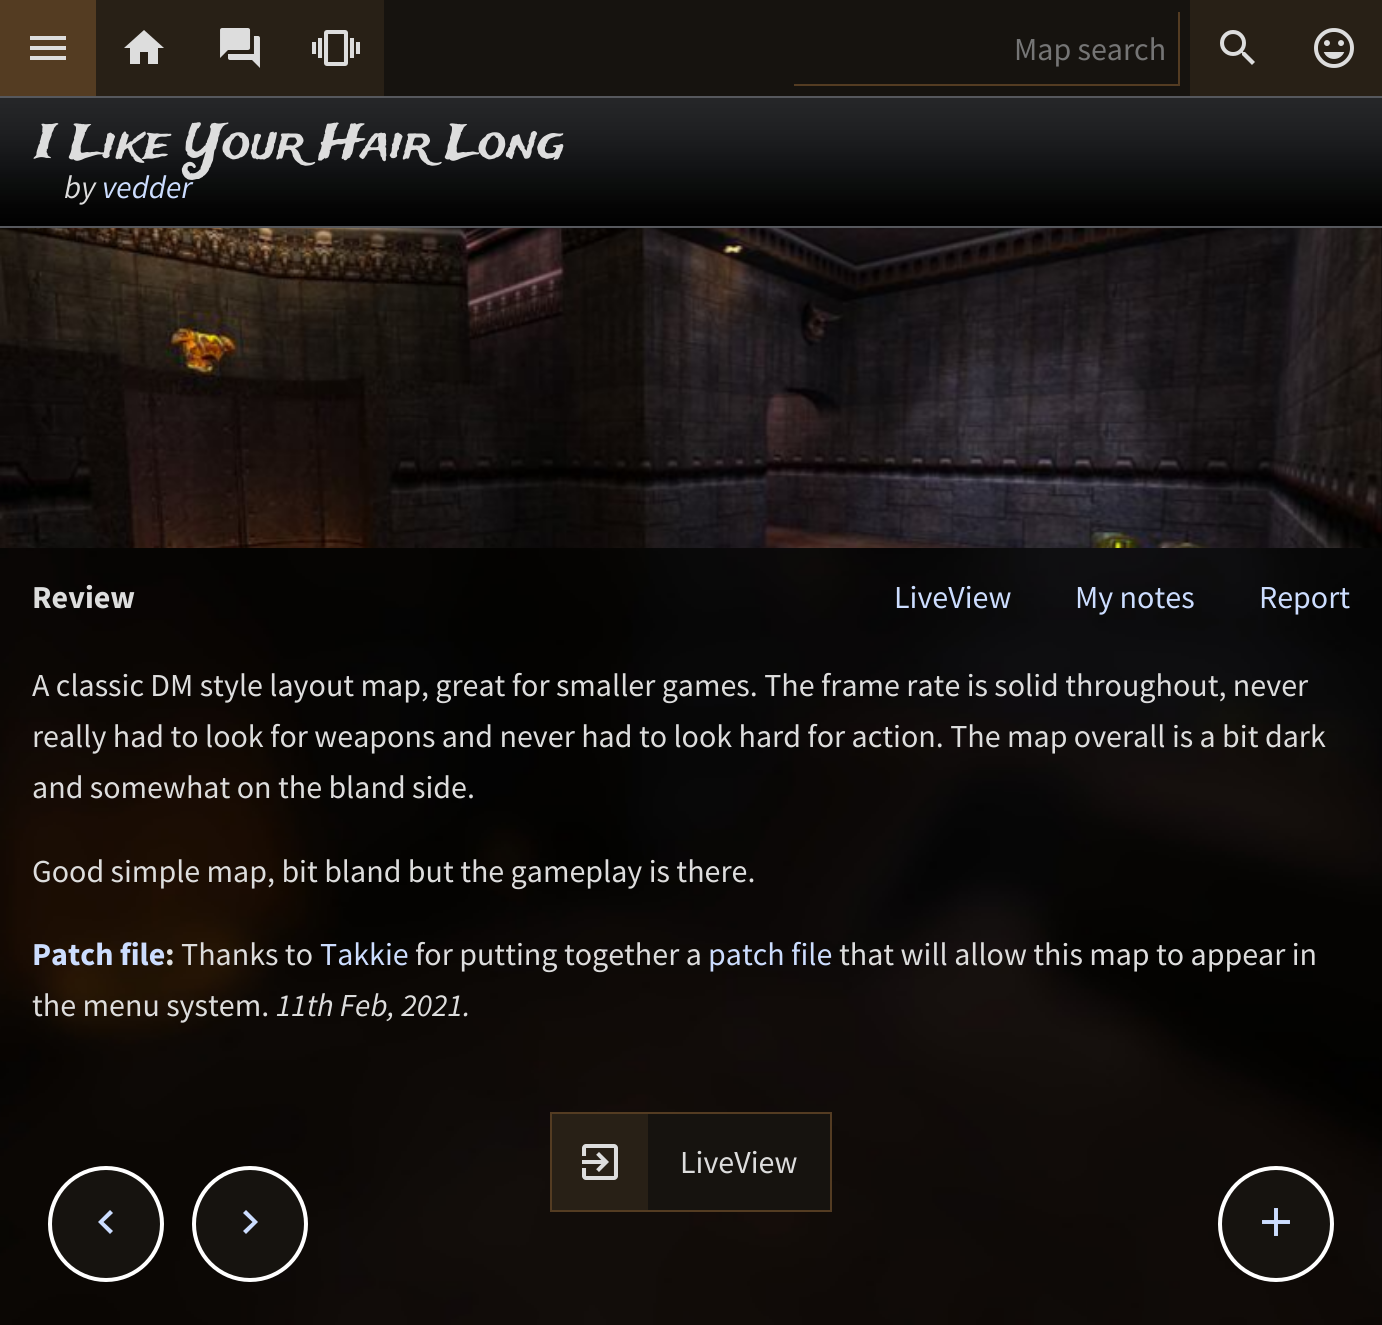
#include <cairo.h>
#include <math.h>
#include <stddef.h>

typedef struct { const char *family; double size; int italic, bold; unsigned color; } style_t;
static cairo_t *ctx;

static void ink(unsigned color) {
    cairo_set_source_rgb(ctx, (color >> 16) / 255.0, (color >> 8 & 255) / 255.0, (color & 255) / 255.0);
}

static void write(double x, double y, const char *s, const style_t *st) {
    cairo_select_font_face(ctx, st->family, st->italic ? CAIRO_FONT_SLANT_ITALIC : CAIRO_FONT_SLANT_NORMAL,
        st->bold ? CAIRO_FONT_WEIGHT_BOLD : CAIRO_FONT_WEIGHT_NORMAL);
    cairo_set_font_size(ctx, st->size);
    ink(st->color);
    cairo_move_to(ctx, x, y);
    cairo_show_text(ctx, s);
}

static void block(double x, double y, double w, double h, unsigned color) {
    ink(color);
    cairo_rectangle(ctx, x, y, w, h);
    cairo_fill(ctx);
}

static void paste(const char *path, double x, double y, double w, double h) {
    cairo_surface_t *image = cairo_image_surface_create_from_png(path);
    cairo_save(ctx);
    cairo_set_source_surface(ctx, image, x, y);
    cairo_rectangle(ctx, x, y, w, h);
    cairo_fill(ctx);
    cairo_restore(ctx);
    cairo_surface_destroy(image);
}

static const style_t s1 = {"Source Sans Pro", 32, 0, 0, 0x757575};
static const style_t s2 = {"Trade Winds", 48, 0, 0, 0xdddddd};
static const style_t s3 = {"Source Sans Pro", 32, 1, 0, 0xdddddd};
static const style_t s4 = {"Source Sans Pro", 32, 1, 0, 0xccddff};
static const style_t s5 = {"Source Sans Pro", 32, 0, 1, 0xdddddd};
static const style_t s6 = {"Source Sans Pro", 32, 0, 0, 0xccddff};
static const style_t s7 = {"Source Sans Pro", 32, 0, 0, 0xdddddd};
static const style_t s8 = {"Source Sans Pro", 32, 0, 1, 0xccddff};

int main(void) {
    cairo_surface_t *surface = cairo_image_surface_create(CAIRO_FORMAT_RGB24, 1382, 1325);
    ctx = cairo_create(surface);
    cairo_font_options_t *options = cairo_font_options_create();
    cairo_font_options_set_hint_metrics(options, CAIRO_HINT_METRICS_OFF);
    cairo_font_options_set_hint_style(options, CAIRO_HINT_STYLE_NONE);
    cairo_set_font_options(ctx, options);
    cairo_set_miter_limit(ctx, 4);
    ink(0xffffff);
    cairo_paint(ctx);
    block(384, 0, 806, 96, 0x16130f);
    block(0, 0, 96, 96, 0x543c22);
    ink(0xdddddd);
    cairo_new_path(ctx);
    cairo_move_to(ctx, 30, 36);
    cairo_line_to(ctx, 66, 36);
    cairo_line_to(ctx, 66, 40);
    cairo_line_to(ctx, 30, 40);
    cairo_close_path(ctx);
    cairo_move_to(ctx, 30, 50);
    cairo_line_to(ctx, 30, 46);
    cairo_line_to(ctx, 66, 46);
    cairo_line_to(ctx, 66, 50);
    cairo_close_path(ctx);
    cairo_move_to(ctx, 30, 60);
    cairo_line_to(ctx, 30, 56);
    cairo_line_to(ctx, 66, 56);
    cairo_line_to(ctx, 66, 60);
    cairo_close_path(ctx);
    cairo_fill(ctx);
    block(96, 0, 288, 96, 0x282016);
    ink(0xdddddd);
    cairo_new_path(ctx);
    cairo_move_to(ctx, 140, 64);
    cairo_line_to(ctx, 130, 64);
    cairo_line_to(ctx, 130, 48);
    cairo_line_to(ctx, 124, 48);
    cairo_line_to(ctx, 144, 30);
    cairo_line_to(ctx, 164, 48);
    cairo_line_to(ctx, 158, 48);
    cairo_line_to(ctx, 158, 64);
    cairo_line_to(ctx, 148, 64);
    cairo_line_to(ctx, 148, 52);
    cairo_line_to(ctx, 140, 52);
    cairo_close_path(ctx);
    cairo_fill(ctx);
    block(1190, 0, 192, 96, 0x282016);
    paste("pic1.png", 1220, 30, 35, 35);
    paste("pic2.png", 1314, 28, 40, 40);
    paste("pic3.png", 220, 28, 40, 40);
    paste("pic4.png", 312, 30, 48, 36);
    block(1178, 12, 2, 74, 0x543c22);
    block(794, 84, 386, 2, 0x543c22);
    write(1014, 60, "Map search", &s1);
    paste("pic5.png", 0, 98, 1382, 128);
    block(0, 96, 1382, 2, 0x56585d);
    block(0, 226, 1382, 2, 0x56585d);
    write(36, 158, "I Like Your Hair Long", &s2);
    write(64, 198, "by", &s3);
    write(102, 198, "vedder", &s4);
    paste("pic6.png", 0, 228, 1382, 1097);
    paste("pic7.png", 0, 228, 1382, 320);
    write(32, 608, "Review", &s5);
    write(894, 608, "LiveView", &s6);
    write(1075, 608, "My notes", &s6);
    write(1259, 608, "Report", &s6);
    write(32, 696, "A classic DM style layout map, great for smaller games. The frame rate is solid throughout, never", &s7);
    write(32, 747, "really had to look for weapons and never had to look hard for action. The map overall is a bit dark", &s7);
    write(32, 798, "and somewhat on the bland side.", &s7);
    write(32, 882, "Good simple map, bit bland but the gameplay is there.", &s7);
    write(32, 965, "Patch file", &s8);
    write(165, 965, ":", &s5);
    write(181, 965, "Thanks to", &s7);
    write(320, 965, "Takkie", &s6);
    write(415, 965, "for putting together a", &s7);
    write(708, 965, "patch file", &s6);
    write(839, 965, "that will allow this map to appear in", &s7);
    write(32, 1016, "the menu system.", &s7);
    write(276, 1016, "11th Feb, 2021.", &s3);
    block(648, 1114, 182, 96, 0x16130f);
    cairo_rectangle(ctx, 551, 1113, 280, 98);
    ink(0x543c22);
    cairo_stroke(ctx);
    block(552, 1114, 96, 96, 0x282016);
    paste("pic8.png", 582, 1144, 36, 36);
    write(680, 1173, "LiveView", &s7);
    ink(0x16130f);
    cairo_new_path(ctx);
    cairo_arc(ctx, 106, 1224, 56, 0, 2 * M_PI);
    cairo_fill_preserve(ctx);
    ink(0xffffff);
    cairo_set_line_width(ctx, 4);
    cairo_stroke(ctx);
    ink(0xccddff);
    cairo_new_path(ctx);
    cairo_move_to(ctx, 113, 1213);
    cairo_line_to(ctx, 103.5, 1222);
    cairo_line_to(ctx, 113, 1231);
    cairo_line_to(ctx, 110, 1234);
    cairo_line_to(ctx, 98, 1222);
    cairo_line_to(ctx, 110, 1210);
    cairo_close_path(ctx);
    cairo_fill(ctx);
    ink(0x16130f);
    cairo_arc(ctx, 250, 1224, 56, 0, 2 * M_PI);
    cairo_fill_preserve(ctx);
    ink(0xffffff);
    cairo_stroke(ctx);
    ink(0xccddff);
    cairo_new_path(ctx);
    cairo_move_to(ctx, 246, 1210);
    cairo_line_to(ctx, 258, 1222);
    cairo_line_to(ctx, 246, 1234);
    cairo_line_to(ctx, 243, 1231);
    cairo_line_to(ctx, 252.5, 1222);
    cairo_line_to(ctx, 243, 1213);
    cairo_close_path(ctx);
    cairo_fill(ctx);
    ink(0x16130f);
    cairo_arc(ctx, 1276, 1224, 56, 0, 2 * M_PI);
    cairo_fill_preserve(ctx);
    ink(0xffffff);
    cairo_stroke(ctx);
    paste("pic9.png", 1262, 1208, 28, 28);
    cairo_surface_write_to_png(surface, "screenshot.png");
    cairo_font_options_destroy(options);
    cairo_destroy(ctx);
    cairo_surface_destroy(surface);
    return 0;
}
